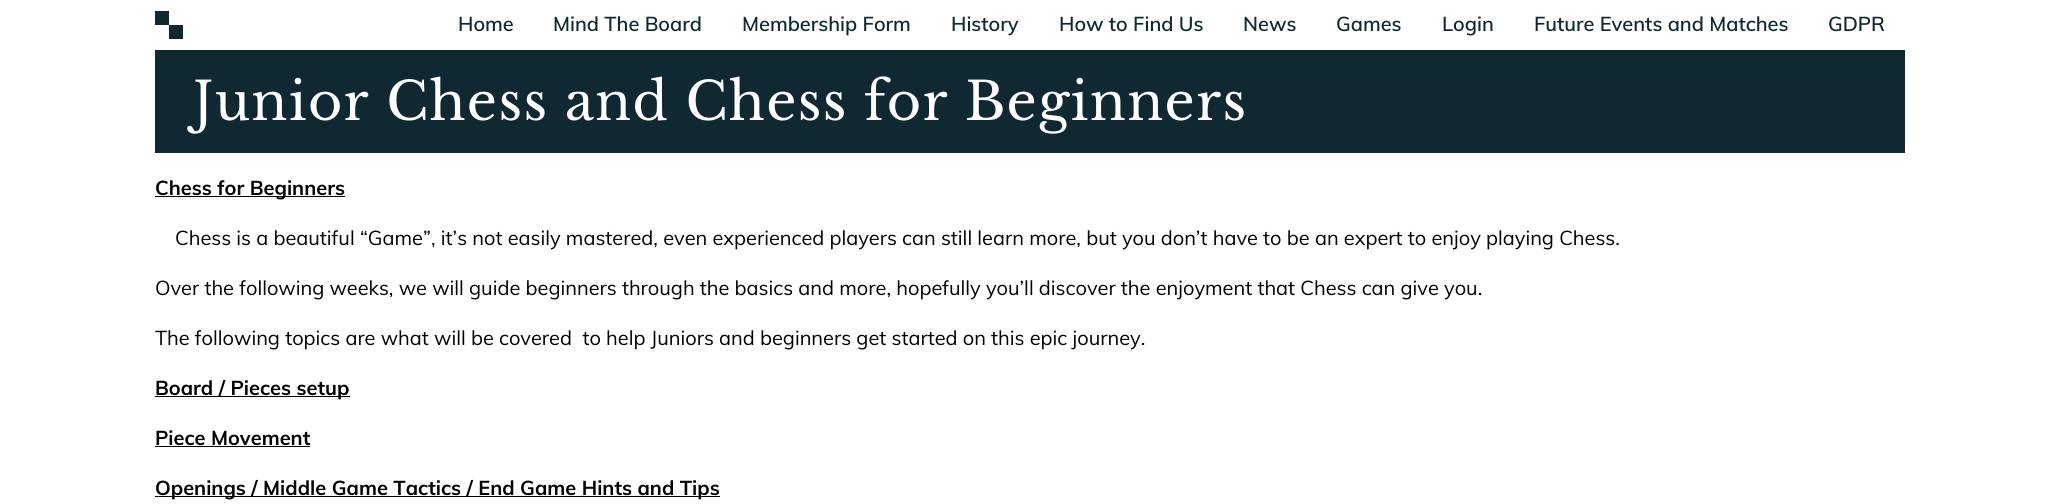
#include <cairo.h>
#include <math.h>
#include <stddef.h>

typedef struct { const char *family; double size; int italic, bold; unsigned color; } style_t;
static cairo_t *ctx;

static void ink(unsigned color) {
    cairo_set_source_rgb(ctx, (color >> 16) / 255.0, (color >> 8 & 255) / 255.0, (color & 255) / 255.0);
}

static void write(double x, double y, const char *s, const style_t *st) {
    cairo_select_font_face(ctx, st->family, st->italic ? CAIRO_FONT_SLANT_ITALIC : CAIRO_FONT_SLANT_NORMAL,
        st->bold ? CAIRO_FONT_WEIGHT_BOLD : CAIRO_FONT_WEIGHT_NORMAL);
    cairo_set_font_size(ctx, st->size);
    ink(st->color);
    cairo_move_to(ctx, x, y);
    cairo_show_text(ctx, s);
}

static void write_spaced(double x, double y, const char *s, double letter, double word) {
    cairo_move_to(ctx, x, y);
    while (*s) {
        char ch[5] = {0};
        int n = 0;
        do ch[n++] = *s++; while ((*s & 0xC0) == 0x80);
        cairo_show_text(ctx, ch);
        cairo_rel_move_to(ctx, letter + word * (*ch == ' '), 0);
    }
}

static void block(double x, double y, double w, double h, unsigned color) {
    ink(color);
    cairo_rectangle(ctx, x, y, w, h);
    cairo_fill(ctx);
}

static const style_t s1 = {"Muli SemiBold", 20, 0, 0, 0x0f2832};
static const style_t s2 = {"Muli", 20, 0, 1, 0x000000};
static const style_t s3 = {"Muli", 20, 0, 0, 0x000000};

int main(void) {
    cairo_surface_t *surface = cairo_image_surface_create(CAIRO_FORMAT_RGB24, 2060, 504);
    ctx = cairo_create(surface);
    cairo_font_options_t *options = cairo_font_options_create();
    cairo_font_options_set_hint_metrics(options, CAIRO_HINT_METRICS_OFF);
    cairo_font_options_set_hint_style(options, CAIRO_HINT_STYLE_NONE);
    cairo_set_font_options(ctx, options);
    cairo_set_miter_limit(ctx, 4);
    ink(0xffffff);
    cairo_paint(ctx);
    block(155, 11, 14, 14, 0x0f2832);
    block(169, 25, 14, 14, 0x0f2832);
    write(458, 31, "Home", &s1);
    write(553, 31, "Mind The Board", &s1);
    write(742, 31, "Membership Form", &s1);
    write(951, 31, "History", &s1);
    write(1059, 31, "How to Find Us", &s1);
    write(1243, 31, "News", &s1);
    write(1336, 31, "Games", &s1);
    write(1442, 31, "Login", &s1);
    write(1534, 31, "Future Events and Matches", &s1);
    write(1828, 31, "GDPR", &s1);
    block(155, 50, 1750, 103, 0x0f2832);
    cairo_select_font_face(ctx, "Libre Baskerville", CAIRO_FONT_SLANT_NORMAL, CAIRO_FONT_WEIGHT_NORMAL);
    cairo_set_font_size(ctx, 52.5);
    ink(0xffffff);
    write_spaced(193, 120, "Junior Chess and Chess for Beginners", 1.25, 0);
    block(155, 196, 190, 1, 0x000000);
    write(155, 195, "Chess for Beginners", &s2);
    write(175, 245, "Chess is a beautiful “Game”, it’s not easily mastered, even experienced players can still learn more, but you don’t have to be an expert to enjoy playing Chess.", &s3);
    write(155, 295, "Over the following weeks, we will guide beginners through the basics and more, hopefully you’ll discover the enjoyment that Chess can give you.", &s3);
    write(155, 345, "The following topics are what will be covered  to help Juniors and beginners get started on this epic journey.", &s3);
    block(155, 396, 195, 1, 0x000000);
    write(155, 395, "Board / Pieces setup", &s2);
    write(155, 445, "Piece Movement", &s2);
    block(155, 446, 155, 1, 0x000000);
    block(155, 496, 565, 1, 0x000000);
    write(155, 495, "Openings / Middle Game Tactics / End Game Hints and Tips", &s2);
    cairo_surface_write_to_png(surface, "screenshot.png");
    cairo_font_options_destroy(options);
    cairo_destroy(ctx);
    cairo_surface_destroy(surface);
    return 0;
}
